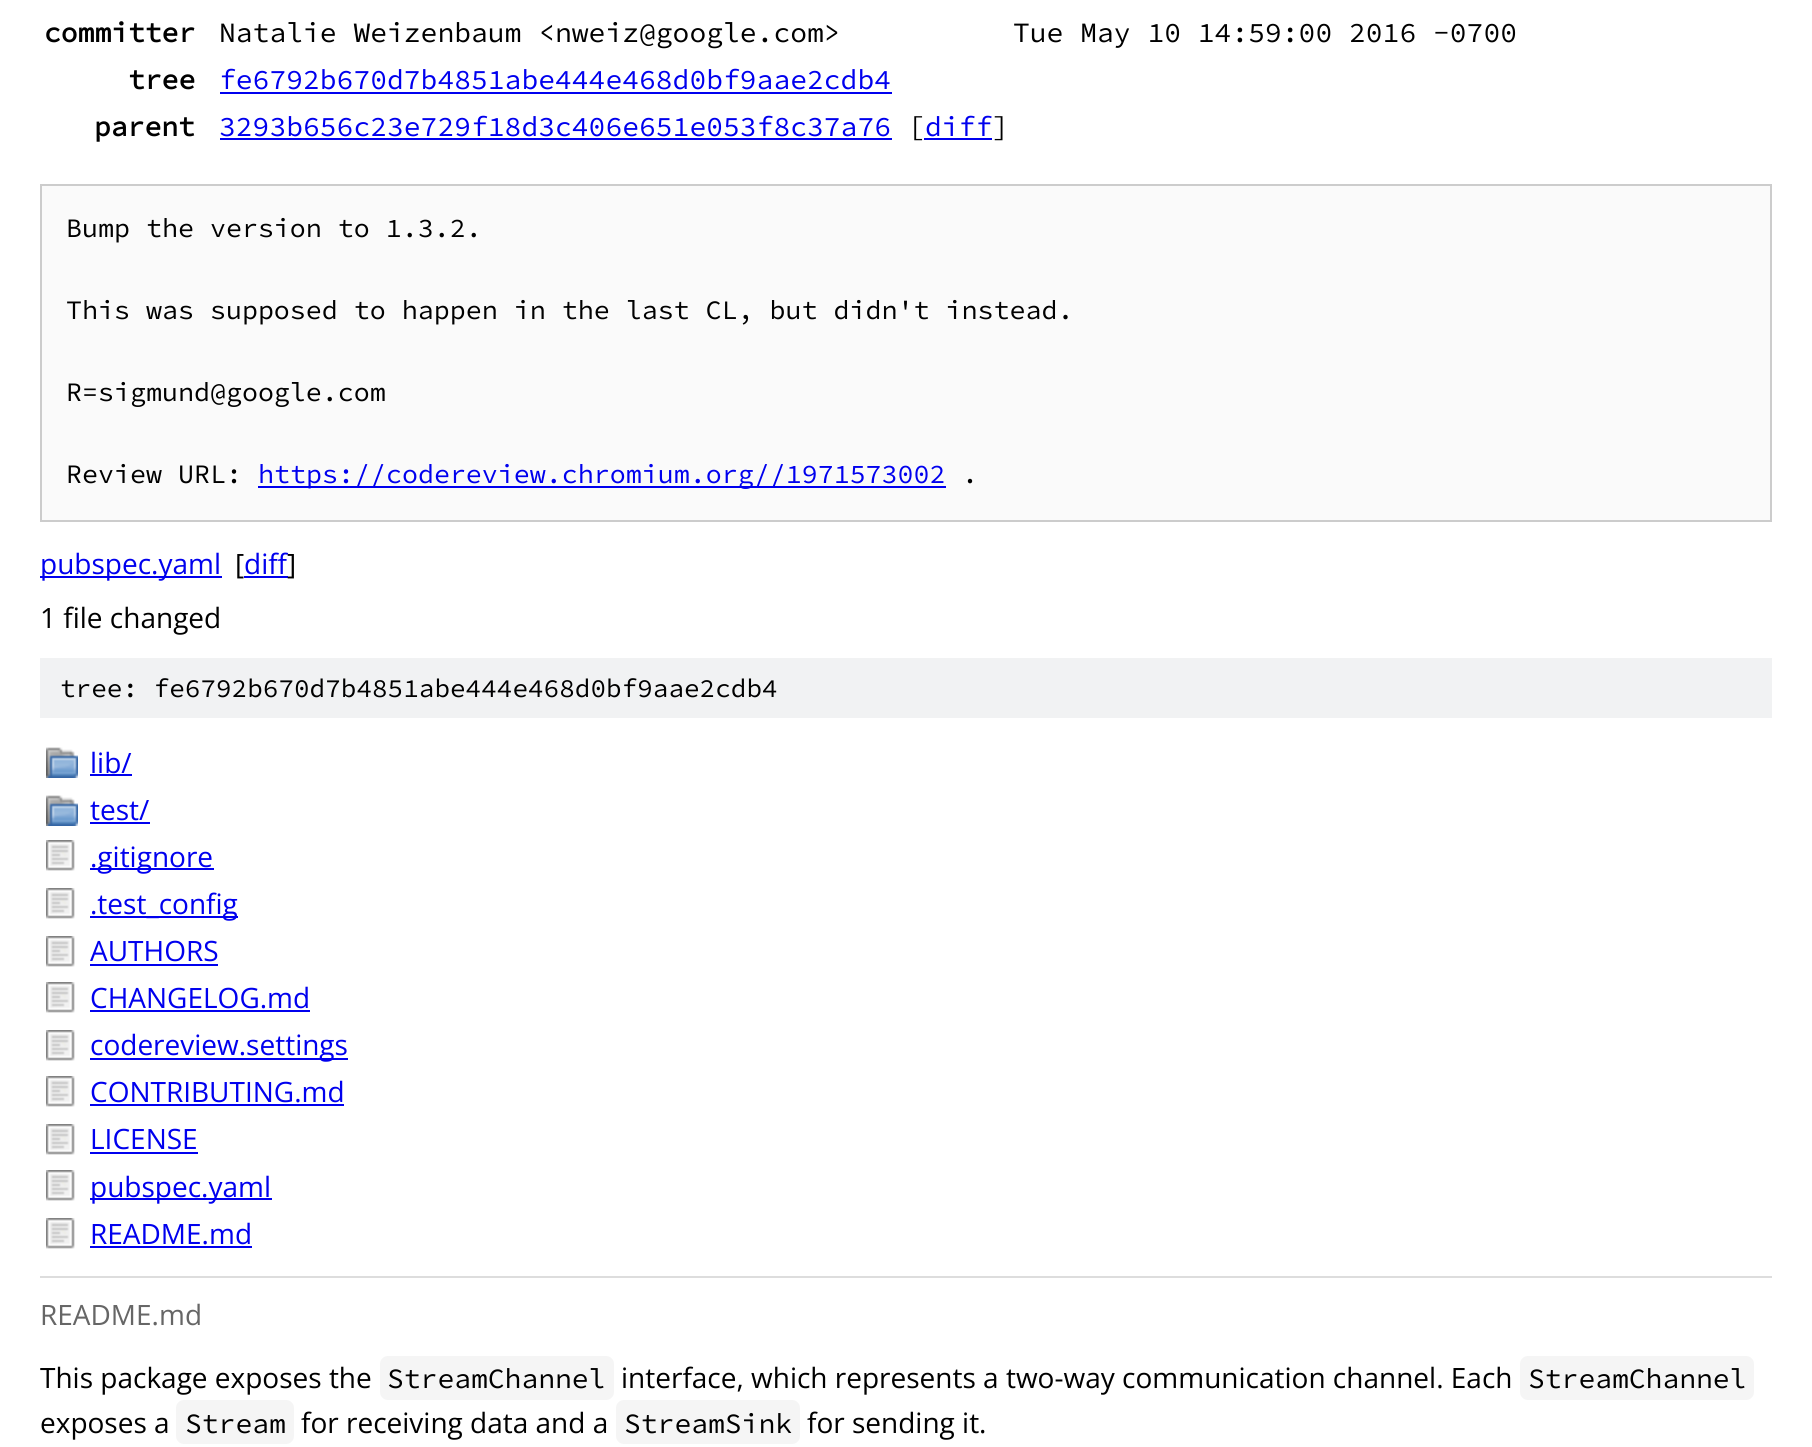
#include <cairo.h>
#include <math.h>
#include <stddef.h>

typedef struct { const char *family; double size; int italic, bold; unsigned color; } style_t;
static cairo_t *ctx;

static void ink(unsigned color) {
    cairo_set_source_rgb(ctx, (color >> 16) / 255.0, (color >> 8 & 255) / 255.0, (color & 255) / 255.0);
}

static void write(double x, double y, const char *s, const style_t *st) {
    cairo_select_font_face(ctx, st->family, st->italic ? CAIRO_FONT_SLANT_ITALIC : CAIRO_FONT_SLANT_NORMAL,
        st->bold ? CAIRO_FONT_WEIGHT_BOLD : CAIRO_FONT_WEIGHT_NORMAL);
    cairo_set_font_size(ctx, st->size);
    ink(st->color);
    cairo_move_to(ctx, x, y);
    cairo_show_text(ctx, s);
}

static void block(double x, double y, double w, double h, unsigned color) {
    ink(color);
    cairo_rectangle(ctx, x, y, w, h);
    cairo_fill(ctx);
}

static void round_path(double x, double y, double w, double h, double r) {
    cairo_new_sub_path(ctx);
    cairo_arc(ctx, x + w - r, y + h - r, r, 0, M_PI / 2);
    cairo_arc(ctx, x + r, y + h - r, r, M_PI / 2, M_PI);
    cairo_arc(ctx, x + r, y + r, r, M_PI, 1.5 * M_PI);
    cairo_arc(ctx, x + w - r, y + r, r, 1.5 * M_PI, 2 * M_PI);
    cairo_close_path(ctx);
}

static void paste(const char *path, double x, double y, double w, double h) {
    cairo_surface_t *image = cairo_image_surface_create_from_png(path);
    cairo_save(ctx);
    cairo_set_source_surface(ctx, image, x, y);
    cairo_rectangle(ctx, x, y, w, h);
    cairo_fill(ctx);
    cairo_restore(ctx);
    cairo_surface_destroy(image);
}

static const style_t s1 = {"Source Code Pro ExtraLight", 28, 0, 1, 0x000000};
static const style_t s2 = {"Source Code Pro ExtraLight ExtraLight", 28, 0, 0, 0x000000};
static const style_t s3 = {"Source Code Pro ExtraLight ExtraLight", 28, 0, 0, 0x0000ee};
static const style_t s4 = {"Source Code Pro ExtraLight ExtraLight", 26.65, 0, 0, 0x000000};
static const style_t s5 = {"Source Code Pro ExtraLight ExtraLight", 26.65, 0, 0, 0x0000ee};
static const style_t s6 = {"Open Sans", 28, 0, 0, 0x0000ee};
static const style_t s7 = {"Open Sans", 28, 0, 0, 0x000000};
static const style_t s8 = {"Source Code Pro ExtraLight ExtraLight", 26, 0, 0, 0x000000};
static const style_t s9 = {"Open Sans", 28, 0, 0, 0x666666};

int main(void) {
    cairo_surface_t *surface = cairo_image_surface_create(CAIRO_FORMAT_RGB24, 1812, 1447);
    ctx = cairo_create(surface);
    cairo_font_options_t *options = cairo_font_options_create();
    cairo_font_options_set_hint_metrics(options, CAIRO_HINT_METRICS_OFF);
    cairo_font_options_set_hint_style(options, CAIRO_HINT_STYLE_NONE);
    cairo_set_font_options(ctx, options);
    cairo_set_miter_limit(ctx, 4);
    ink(0xffffff);
    cairo_paint(ctx);
    write(44, 42, "committer", &s1);
    write(219, 42, "Natalie Weizenbaum <nweiz@google.com>", &s2);
    write(1013, 42, "Tue May 10 14:59:00 2016 -0700", &s2);
    write(128, 89, "tree", &s1);
    write(219, 89, "fe6792b670d7b4851abe444e468d0bf9aae2cdb4", &s3);
    block(220, 92, 672, 2, 0x0000ee);
    write(94, 136, "parent", &s1);
    write(219, 136, "3293b656c23e729f18d3c406e651e053f8c37a76", &s3);
    block(220, 138, 672, 2, 0x0000ee);
    write(908, 136, "[", &s2);
    block(924, 138, 68, 2, 0x0000ee);
    write(925, 136, "diff", &s3);
    write(992, 136, "]", &s2);
    ink(0xfafafa);
    cairo_rectangle(ctx, 41, 185, 1730, 336);
    cairo_fill_preserve(ctx);
    ink(0xcccccc);
    cairo_stroke(ctx);
    write(66, 237, "Bump the version to 1.3.2.", &s4);
    write(66, 319, "This was supposed to happen in the last CL, but didn't instead.", &s4);
    write(66, 401, "R=sigmund@google.com", &s4);
    write(66, 483, "Review URL:", &s4);
    block(258, 486, 688, 2, 0x0000ee);
    write(258, 483, "https://codereview.chromium.org//1971573002", &s5);
    write(962, 483, ".", &s4);
    block(40, 576, 182, 2, 0x0000ee);
    write(40, 574, "pubspec.yaml", &s6);
    write(235, 574, "[", &s7);
    block(244, 576, 44, 2, 0x0000ee);
    write(244, 574, "diff", &s6);
    write(287, 574, "]", &s7);
    write(40, 628, "1 file changed", &s7);
    block(40, 658, 1732, 60, 0xf1f2f3);
    write(60, 697, "tree: fe6792b670d7b4851abe444e468d0bf9aae2cdb4", &s8);
    paste("pic1.png", 46, 747, 32, 31);
    write(90, 773, "lib/", &s6);
    block(90, 774, 42, 2, 0x0000ee);
    paste("pic1.png", 46, 795, 32, 31);
    write(90, 820, "test/", &s6);
    block(90, 822, 60, 2, 0x0000ee);
    paste("pic2.png", 46, 840, 29, 31);
    block(90, 868, 124, 2, 0x0000ee);
    write(90, 867, ".gitignore", &s6);
    paste("pic2.png", 46, 888, 29, 31);
    block(90, 916, 148, 2, 0x0000ee);
    write(90, 914, ".test_config", &s6);
    paste("pic2.png", 46, 936, 29, 31);
    write(90, 961, "AUTHORS", &s6);
    block(90, 964, 128, 2, 0x0000ee);
    paste("pic2.png", 46, 982, 29, 31);
    write(90, 1008, "CHANGELOG.md", &s6);
    block(90, 1010, 220, 2, 0x0000ee);
    paste("pic2.png", 46, 1030, 29, 31);
    block(90, 1058, 258, 2, 0x0000ee);
    write(90, 1055, "codereview.settings", &s6);
    paste("pic2.png", 46, 1076, 29, 31);
    write(90, 1102, "CONTRIBUTING.md", &s6);
    block(90, 1104, 254, 2, 0x0000ee);
    paste("pic2.png", 46, 1124, 29, 31);
    write(90, 1149, "LICENSE", &s6);
    block(90, 1152, 108, 2, 0x0000ee);
    paste("pic2.png", 46, 1170, 29, 31);
    block(90, 1198, 182, 2, 0x0000ee);
    write(90, 1197, "pubspec.yaml", &s6);
    paste("pic2.png", 46, 1218, 29, 31);
    write(90, 1244, "README.md", &s6);
    block(90, 1246, 162, 2, 0x0000ee);
    block(40, 1276, 1732, 2, 0xdddddd);
    write(40, 1325, "README.md", &s9);
    write(40, 1388, "This package exposes the", &s7);
    ink(0xf5f5f5);
    round_path(380, 1356, 234, 44, 8);
    cairo_fill(ctx);
    write(387, 1388, "StreamChannel", &s2);
    write(621, 1388, "interface, which represents a two-way communication channel. Each", &s7);
    ink(0xf5f5f5);
    round_path(1520, 1356, 234, 44, 8);
    cairo_fill(ctx);
    write(1528, 1388, "StreamChannel", &s2);
    write(40, 1433, "exposes a", &s7);
    ink(0xf5f5f5);
    round_path(176, 1400, 118, 44, 8);
    cairo_fill(ctx);
    write(185, 1433, "Stream", &s2);
    write(301, 1433, "for receiving data and a", &s7);
    ink(0xf5f5f5);
    round_path(616, 1400, 184, 44, 8);
    cairo_fill(ctx);
    write(624, 1433, "StreamSink", &s2);
    write(807, 1433, "for sending it.", &s7);
    cairo_surface_write_to_png(surface, "screenshot.png");
    cairo_font_options_destroy(options);
    cairo_destroy(ctx);
    cairo_surface_destroy(surface);
    return 0;
}
